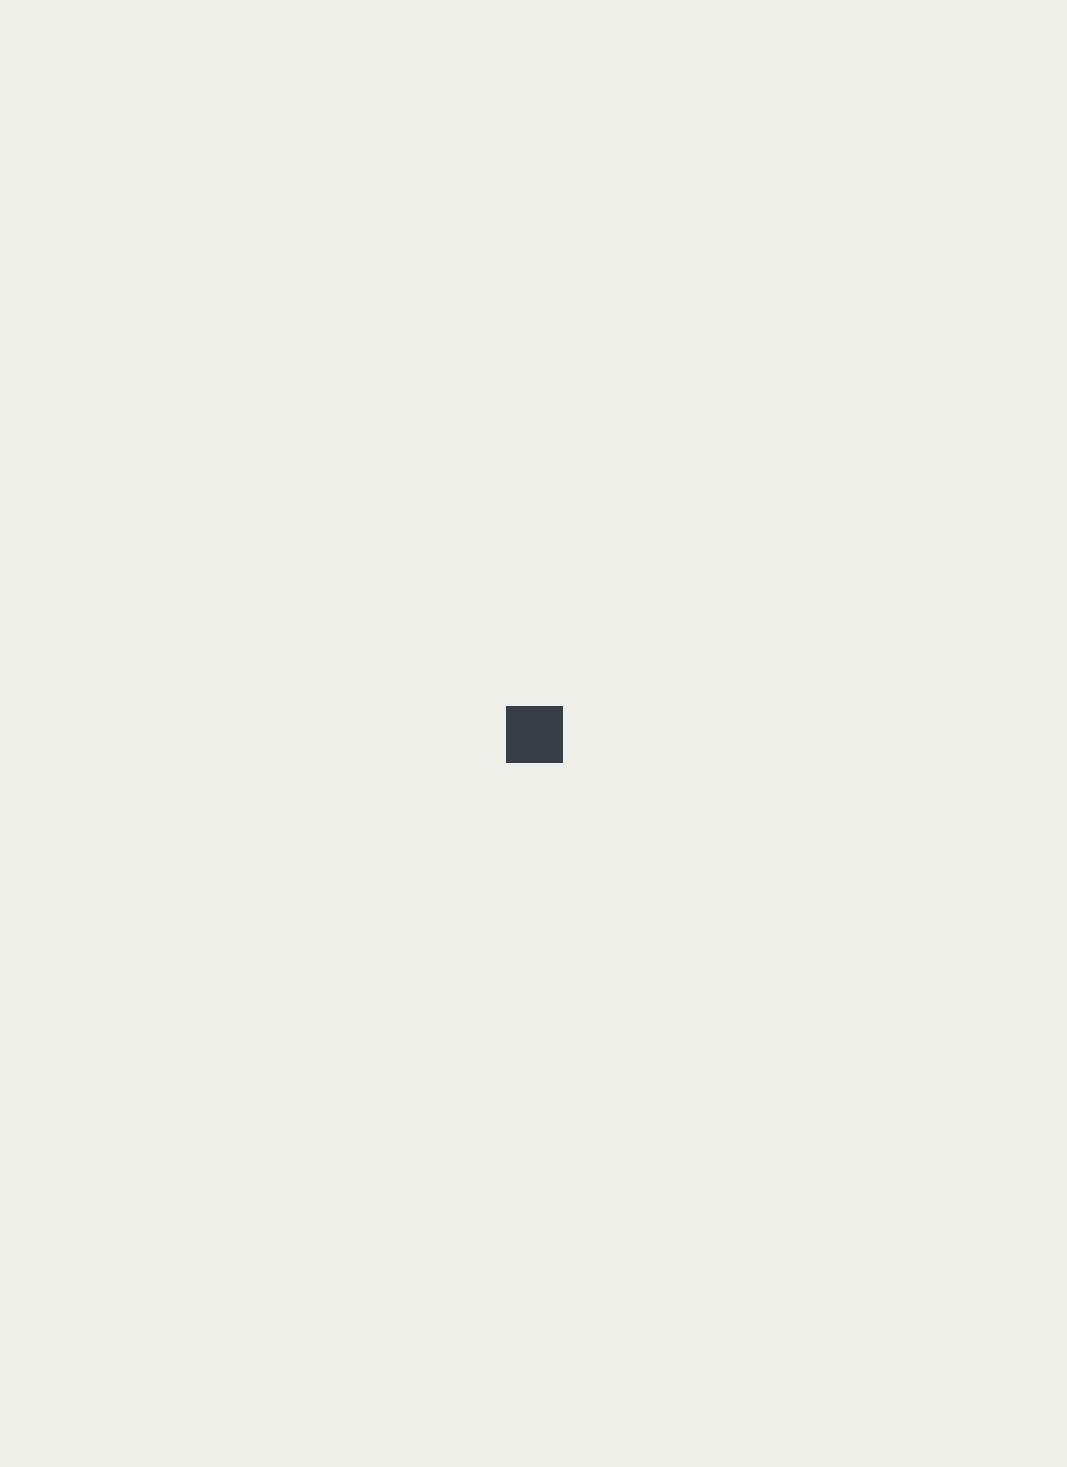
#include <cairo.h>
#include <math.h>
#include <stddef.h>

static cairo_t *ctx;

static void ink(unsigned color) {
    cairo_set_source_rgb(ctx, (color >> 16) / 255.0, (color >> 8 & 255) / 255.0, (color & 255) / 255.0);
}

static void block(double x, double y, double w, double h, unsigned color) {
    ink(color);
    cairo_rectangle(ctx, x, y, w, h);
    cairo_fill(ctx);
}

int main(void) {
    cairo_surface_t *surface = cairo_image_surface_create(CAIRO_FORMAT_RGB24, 1067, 1467);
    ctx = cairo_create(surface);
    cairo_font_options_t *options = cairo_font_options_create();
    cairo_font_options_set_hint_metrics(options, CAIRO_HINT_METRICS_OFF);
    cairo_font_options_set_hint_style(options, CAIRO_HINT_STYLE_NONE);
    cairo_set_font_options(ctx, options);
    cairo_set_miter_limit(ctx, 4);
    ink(0xeeefe9);
    cairo_paint(ctx);
    block(506, 706, 57, 57, 0x393e46);
    cairo_surface_write_to_png(surface, "screenshot.png");
    cairo_font_options_destroy(options);
    cairo_destroy(ctx);
    cairo_surface_destroy(surface);
    return 0;
}
